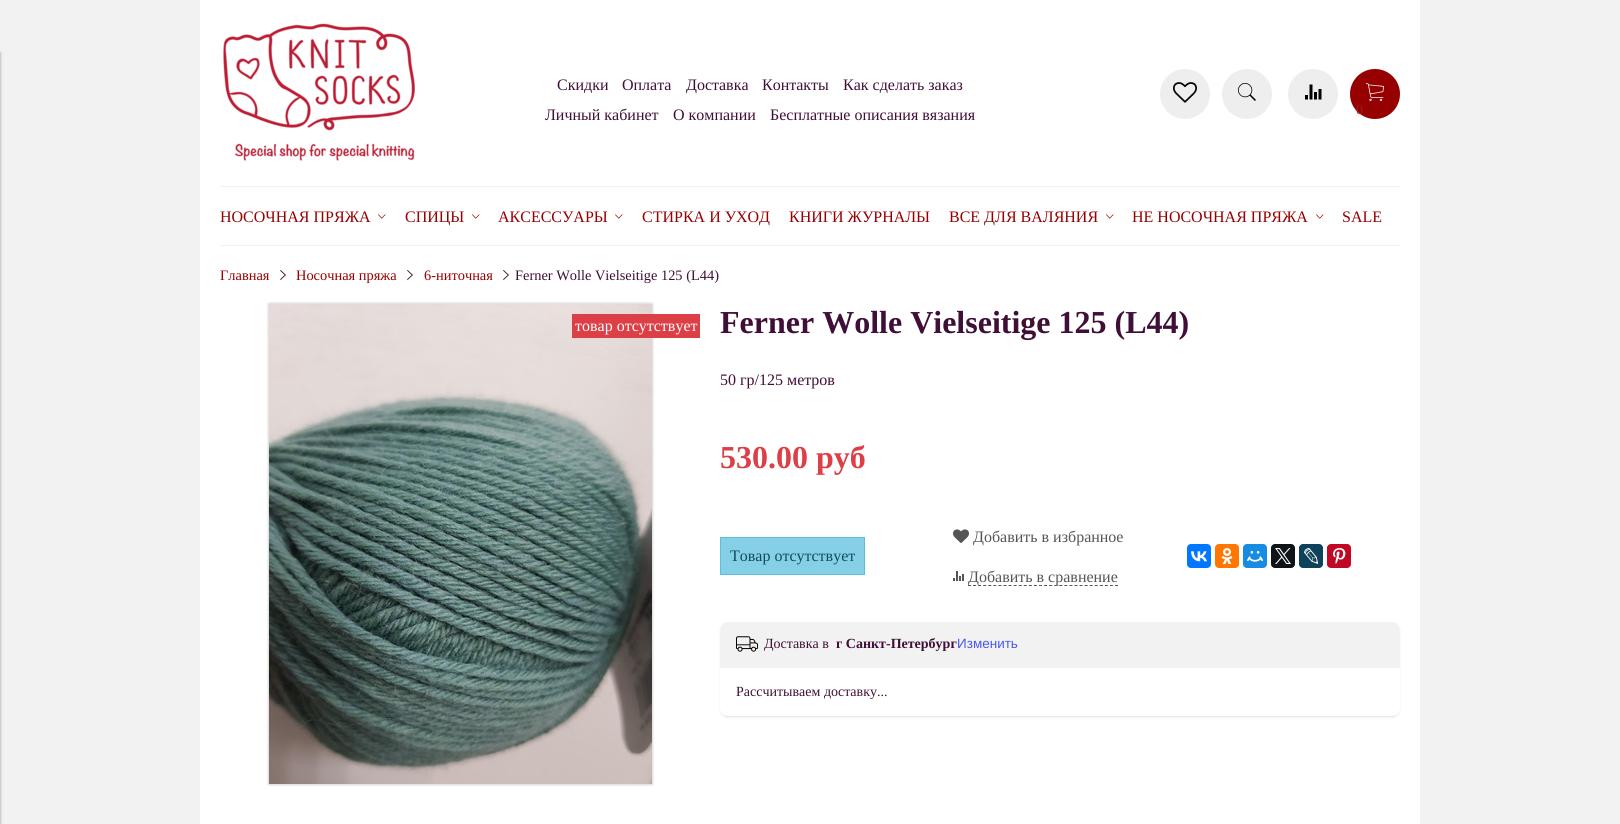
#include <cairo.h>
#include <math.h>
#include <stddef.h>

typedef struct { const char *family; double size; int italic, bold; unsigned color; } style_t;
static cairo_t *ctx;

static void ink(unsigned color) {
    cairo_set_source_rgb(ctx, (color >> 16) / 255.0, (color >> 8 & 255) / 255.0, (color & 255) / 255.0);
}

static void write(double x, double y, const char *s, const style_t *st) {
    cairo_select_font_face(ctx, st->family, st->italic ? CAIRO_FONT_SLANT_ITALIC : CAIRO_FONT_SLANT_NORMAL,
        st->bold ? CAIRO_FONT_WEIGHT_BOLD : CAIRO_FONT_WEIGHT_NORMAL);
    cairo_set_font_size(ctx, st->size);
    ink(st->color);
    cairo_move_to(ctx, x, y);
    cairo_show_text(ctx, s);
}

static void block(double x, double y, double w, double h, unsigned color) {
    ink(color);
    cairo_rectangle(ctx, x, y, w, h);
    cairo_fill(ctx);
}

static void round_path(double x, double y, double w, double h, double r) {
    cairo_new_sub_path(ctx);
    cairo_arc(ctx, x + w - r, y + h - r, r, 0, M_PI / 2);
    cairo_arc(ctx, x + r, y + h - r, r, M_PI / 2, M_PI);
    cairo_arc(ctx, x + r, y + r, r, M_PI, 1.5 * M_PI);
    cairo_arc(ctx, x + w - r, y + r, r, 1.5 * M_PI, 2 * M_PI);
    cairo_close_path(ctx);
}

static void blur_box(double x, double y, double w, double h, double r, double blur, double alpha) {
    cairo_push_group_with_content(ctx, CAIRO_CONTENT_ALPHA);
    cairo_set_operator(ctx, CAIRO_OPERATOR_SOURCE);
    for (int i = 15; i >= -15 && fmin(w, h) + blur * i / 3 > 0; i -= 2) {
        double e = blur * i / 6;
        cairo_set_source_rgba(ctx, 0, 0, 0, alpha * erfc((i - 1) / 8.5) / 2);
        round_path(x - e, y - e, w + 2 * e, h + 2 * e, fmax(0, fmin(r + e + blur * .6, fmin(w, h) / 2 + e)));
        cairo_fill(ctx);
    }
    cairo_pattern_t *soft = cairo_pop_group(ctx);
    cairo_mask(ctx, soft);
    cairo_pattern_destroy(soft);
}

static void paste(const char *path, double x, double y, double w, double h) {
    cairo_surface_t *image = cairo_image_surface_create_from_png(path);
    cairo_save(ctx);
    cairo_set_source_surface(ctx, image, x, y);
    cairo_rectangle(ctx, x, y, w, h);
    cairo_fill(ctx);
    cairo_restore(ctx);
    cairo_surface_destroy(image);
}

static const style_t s1 = {"Liberation Serif", 16, 0, 0, 0x400f37};
static const style_t s2 = {"Liberation Serif", 14, 0, 0, 0xa11b1b};
static const style_t s3 = {"Liberation Serif", 16, 0, 0, 0x960000};
static const style_t s4 = {"Liberation Serif", 14.4, 0, 0, 0x960000};
static const style_t s5 = {"Liberation Serif", 14.4, 0, 0, 0x400f37};
static const style_t s6 = {"Liberation Serif", 16, 0, 0, 0xffffff};
static const style_t s7 = {"Liberation Serif", 32, 0, 1, 0x400f37};
static const style_t s8 = {"Liberation Serif", 32, 0, 1, 0xdd3f46};
static const style_t s9 = {"Liberation Serif", 16, 0, 0, 0x124a5b};
static const style_t s10 = {"Liberation Serif", 16, 0, 0, 0x555555};
static const style_t s11 = {"Liberation Serif", 14, 0, 0, 0x400f37};
static const style_t s12 = {"Liberation Serif", 14, 0, 1, 0x400f37};
static const style_t s13 = {"Liberation Sans", 13.5, 0, 0, 0x4657ef};

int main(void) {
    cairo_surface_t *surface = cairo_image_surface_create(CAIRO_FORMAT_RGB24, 1620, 824);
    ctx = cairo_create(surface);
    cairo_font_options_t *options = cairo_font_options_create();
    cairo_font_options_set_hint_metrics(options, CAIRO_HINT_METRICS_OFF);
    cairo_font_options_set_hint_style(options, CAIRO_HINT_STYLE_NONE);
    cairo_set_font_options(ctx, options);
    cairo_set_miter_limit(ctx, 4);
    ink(0xf2f2f2);
    cairo_paint(ctx);
    ink(0x000000);
    blur_box(-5, 53, 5, 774, 0, 1.5, 0.4);
    block(200, 0, 1220, 824, 0xffffff);
    paste("pic1.png", 223, 23, 192, 138);
    write(557, 90, "Скидки", &s1);
    write(622, 90, "Оплата", &s1);
    write(686, 90, "Доставка", &s1);
    write(762, 90, "Контакты", &s1);
    write(843, 90, "Как сделать заказ", &s1);
    write(545, 120, "Личный кабинет", &s1);
    write(673, 120, "О компании", &s1);
    write(770, 120, "Бесплатные описания вязания", &s1);
    ink(0xeeeeee);
    cairo_new_path(ctx);
    cairo_arc(ctx, 1185, 94, 25, 0, 2 * M_PI);
    cairo_fill(ctx);
    paste("pic2.png", 1173, 82, 24, 21);
    cairo_arc(ctx, 1247, 94, 25, 0, 2 * M_PI);
    cairo_fill(ctx);
    paste("pic3.png", 1238, 83, 18, 18);
    cairo_arc(ctx, 1313, 94, 25, 0, 2 * M_PI);
    cairo_fill(ctx);
    paste("pic4.png", 1305, 84, 17, 16);
    ink(0x960000);
    cairo_arc(ctx, 1375, 94, 25, 0, 2 * M_PI);
    cairo_fill(ctx);
    paste("pic5.png", 1366, 83, 18, 18);
    write(1356, 114, "0", &s2);
    block(220, 186, 1180, 1, 0xf2f2f2);
    write(220, 222, "НОСОЧНАЯ ПРЯЖА", &s3);
    paste("pic6.png", 378, 214, 8, 5);
    write(405, 222, "СПИЦЫ", &s3);
    paste("pic6.png", 472, 214, 8, 5);
    write(498, 222, "АКСЕССУАРЫ", &s3);
    paste("pic6.png", 615, 214, 8, 5);
    write(642, 222, "СТИРКА И УХОД", &s3);
    write(789, 222, "КНИГИ ЖУРНАЛЫ", &s3);
    write(949, 222, "ВСЕ ДЛЯ ВАЛЯНИЯ", &s3);
    paste("pic6.png", 1106, 214, 8, 5);
    write(1132, 222, "НЕ НОСОЧНАЯ ПРЯЖА", &s3);
    paste("pic6.png", 1316, 214, 8, 5);
    write(1342, 222, "SALE", &s3);
    block(220, 245, 1180, 1, 0xf2f2f2);
    write(220, 280, "Главная", &s4);
    paste("pic7.png", 280, 270, 6, 10);
    write(296, 280, "Носочная пряжа", &s4);
    paste("pic7.png", 407, 270, 6, 10);
    write(424, 280, "6-ниточная", &s4);
    paste("pic7.png", 503, 270, 6, 10);
    write(515, 280, "Ferner Wolle Vielseitige 125 (L44)", &s5);
    ink(0x000000);
    blur_box(269, 304, 383, 480, 0, 1.5, 0.3);
    paste("pic8.png", 269, 304, 383, 480);
    block(572, 314, 128, 24, 0xdd3f46);
    write(575, 331, "товар отсутствует", &s6);
    write(720, 333, "Ferner Wolle Vielseitige 125 (L44)", &s7);
    write(720, 385, "50 гр/125 метров", &s1);
    write(720, 468, "530.00 руб", &s8);
    ink(0x85d0e7);
    cairo_rectangle(ctx, 720.5, 537.5, 144, 37);
    cairo_fill_preserve(ctx);
    ink(0x5bc0de);
    cairo_set_line_width(ctx, 1);
    cairo_stroke(ctx);
    write(730, 561, "Товар отсутствует", &s9);
    paste("pic9.png", 953, 529, 16, 14);
    write(973, 542, "Добавить в избранное", &s10);
    paste("pic10.png", 953, 571, 11, 10);
    cairo_new_path(ctx);
    cairo_move_to(ctx, 968, 585.5);
    cairo_line_to(ctx, 1118, 585.5);
    cairo_set_dash(ctx, (double[]){3, 2.07}, 2, 0);
    cairo_stroke(ctx);
    write(968, 582, "Добавить в сравнение", &s10);
    ink(0x0077ff);
    round_path(1187, 544, 24, 24, 4);
    cairo_fill(ctx);
    paste("pic11.png", 1191, 551, 16, 11);
    ink(0xff7700);
    round_path(1215, 544, 24, 24, 4);
    cairo_fill(ctx);
    paste("pic12.png", 1221, 548, 12, 16);
    ink(0x168de2);
    round_path(1243, 544, 24, 24, 4);
    cairo_fill(ctx);
    paste("pic13.png", 1247, 551, 16, 11);
    ink(0x0f1419);
    round_path(1271, 544, 24, 24, 4);
    cairo_fill(ctx);
    paste("pic14.png", 1275, 548, 16, 16);
    ink(0x0d425a);
    round_path(1299, 544, 24, 24, 4);
    cairo_fill(ctx);
    paste("pic15.png", 1304, 548, 15, 16);
    ink(0xc20724);
    round_path(1327, 544, 24, 24, 4);
    cairo_fill(ctx);
    paste("pic16.png", 1333, 548, 13, 16);
    cairo_save(ctx);
    cairo_set_fill_rule(ctx, CAIRO_FILL_RULE_EVEN_ODD);
    cairo_new_path(ctx);
    cairo_move_to(ctx, 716, 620);
    cairo_line_to(ctx, 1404, 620);
    cairo_line_to(ctx, 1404, 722);
    cairo_line_to(ctx, 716, 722);
    cairo_close_path(ctx);
    cairo_move_to(ctx, 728, 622);
    cairo_line_to(ctx, 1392, 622);
    cairo_curve_to(ctx, 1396.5, 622, 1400, 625.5, 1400, 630);
    cairo_line_to(ctx, 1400, 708);
    cairo_curve_to(ctx, 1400, 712.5, 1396.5, 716, 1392, 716);
    cairo_line_to(ctx, 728, 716);
    cairo_curve_to(ctx, 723.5, 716, 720, 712.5, 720, 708);
    cairo_line_to(ctx, 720, 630);
    cairo_curve_to(ctx, 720, 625.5, 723.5, 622, 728, 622);
    cairo_close_path(ctx);
    cairo_clip(ctx);
    ink(0x000000);
    blur_box(720, 624, 680, 94, 8, 1, 0.05);
    cairo_restore(ctx);
    cairo_save(ctx);
    cairo_set_fill_rule(ctx, CAIRO_FILL_RULE_EVEN_ODD);
    cairo_new_path(ctx);
    cairo_move_to(ctx, 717, 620);
    cairo_line_to(ctx, 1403, 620);
    cairo_line_to(ctx, 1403, 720);
    cairo_line_to(ctx, 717, 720);
    cairo_close_path(ctx);
    cairo_move_to(ctx, 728, 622);
    cairo_line_to(ctx, 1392, 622);
    cairo_curve_to(ctx, 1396.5, 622, 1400, 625.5, 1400, 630);
    cairo_line_to(ctx, 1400, 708);
    cairo_curve_to(ctx, 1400, 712.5, 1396.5, 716, 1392, 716);
    cairo_line_to(ctx, 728, 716);
    cairo_curve_to(ctx, 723.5, 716, 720, 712.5, 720, 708);
    cairo_line_to(ctx, 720, 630);
    cairo_curve_to(ctx, 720, 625.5, 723.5, 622, 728, 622);
    cairo_close_path(ctx);
    cairo_clip(ctx);
    ink(0x000000);
    blur_box(720, 623, 680, 94, 8, 0.5, 0.05);
    cairo_restore(ctx);
    ink(0xf2f2f2);
    cairo_new_path(ctx);
    cairo_move_to(ctx, 728, 622);
    cairo_line_to(ctx, 1392, 622);
    cairo_curve_to(ctx, 1396.5, 622, 1400, 625.5, 1400, 630);
    cairo_line_to(ctx, 1400, 668);
    cairo_line_to(ctx, 720, 668);
    cairo_line_to(ctx, 720, 630);
    cairo_curve_to(ctx, 720, 625.5, 723.5, 622, 728, 622);
    cairo_close_path(ctx);
    cairo_fill(ctx);
    paste("pic17.png", 736, 636, 22, 16);
    write(764, 648, "Доставка в", &s11);
    write(836, 648, "г Санкт-Петербург", &s12);
    write(957, 648, "Изменить", &s13);
    write(736, 696, "Рассчитываем доставку...", &s11);
    cairo_surface_write_to_png(surface, "screenshot.png");
    cairo_font_options_destroy(options);
    cairo_destroy(ctx);
    cairo_surface_destroy(surface);
    return 0;
}
